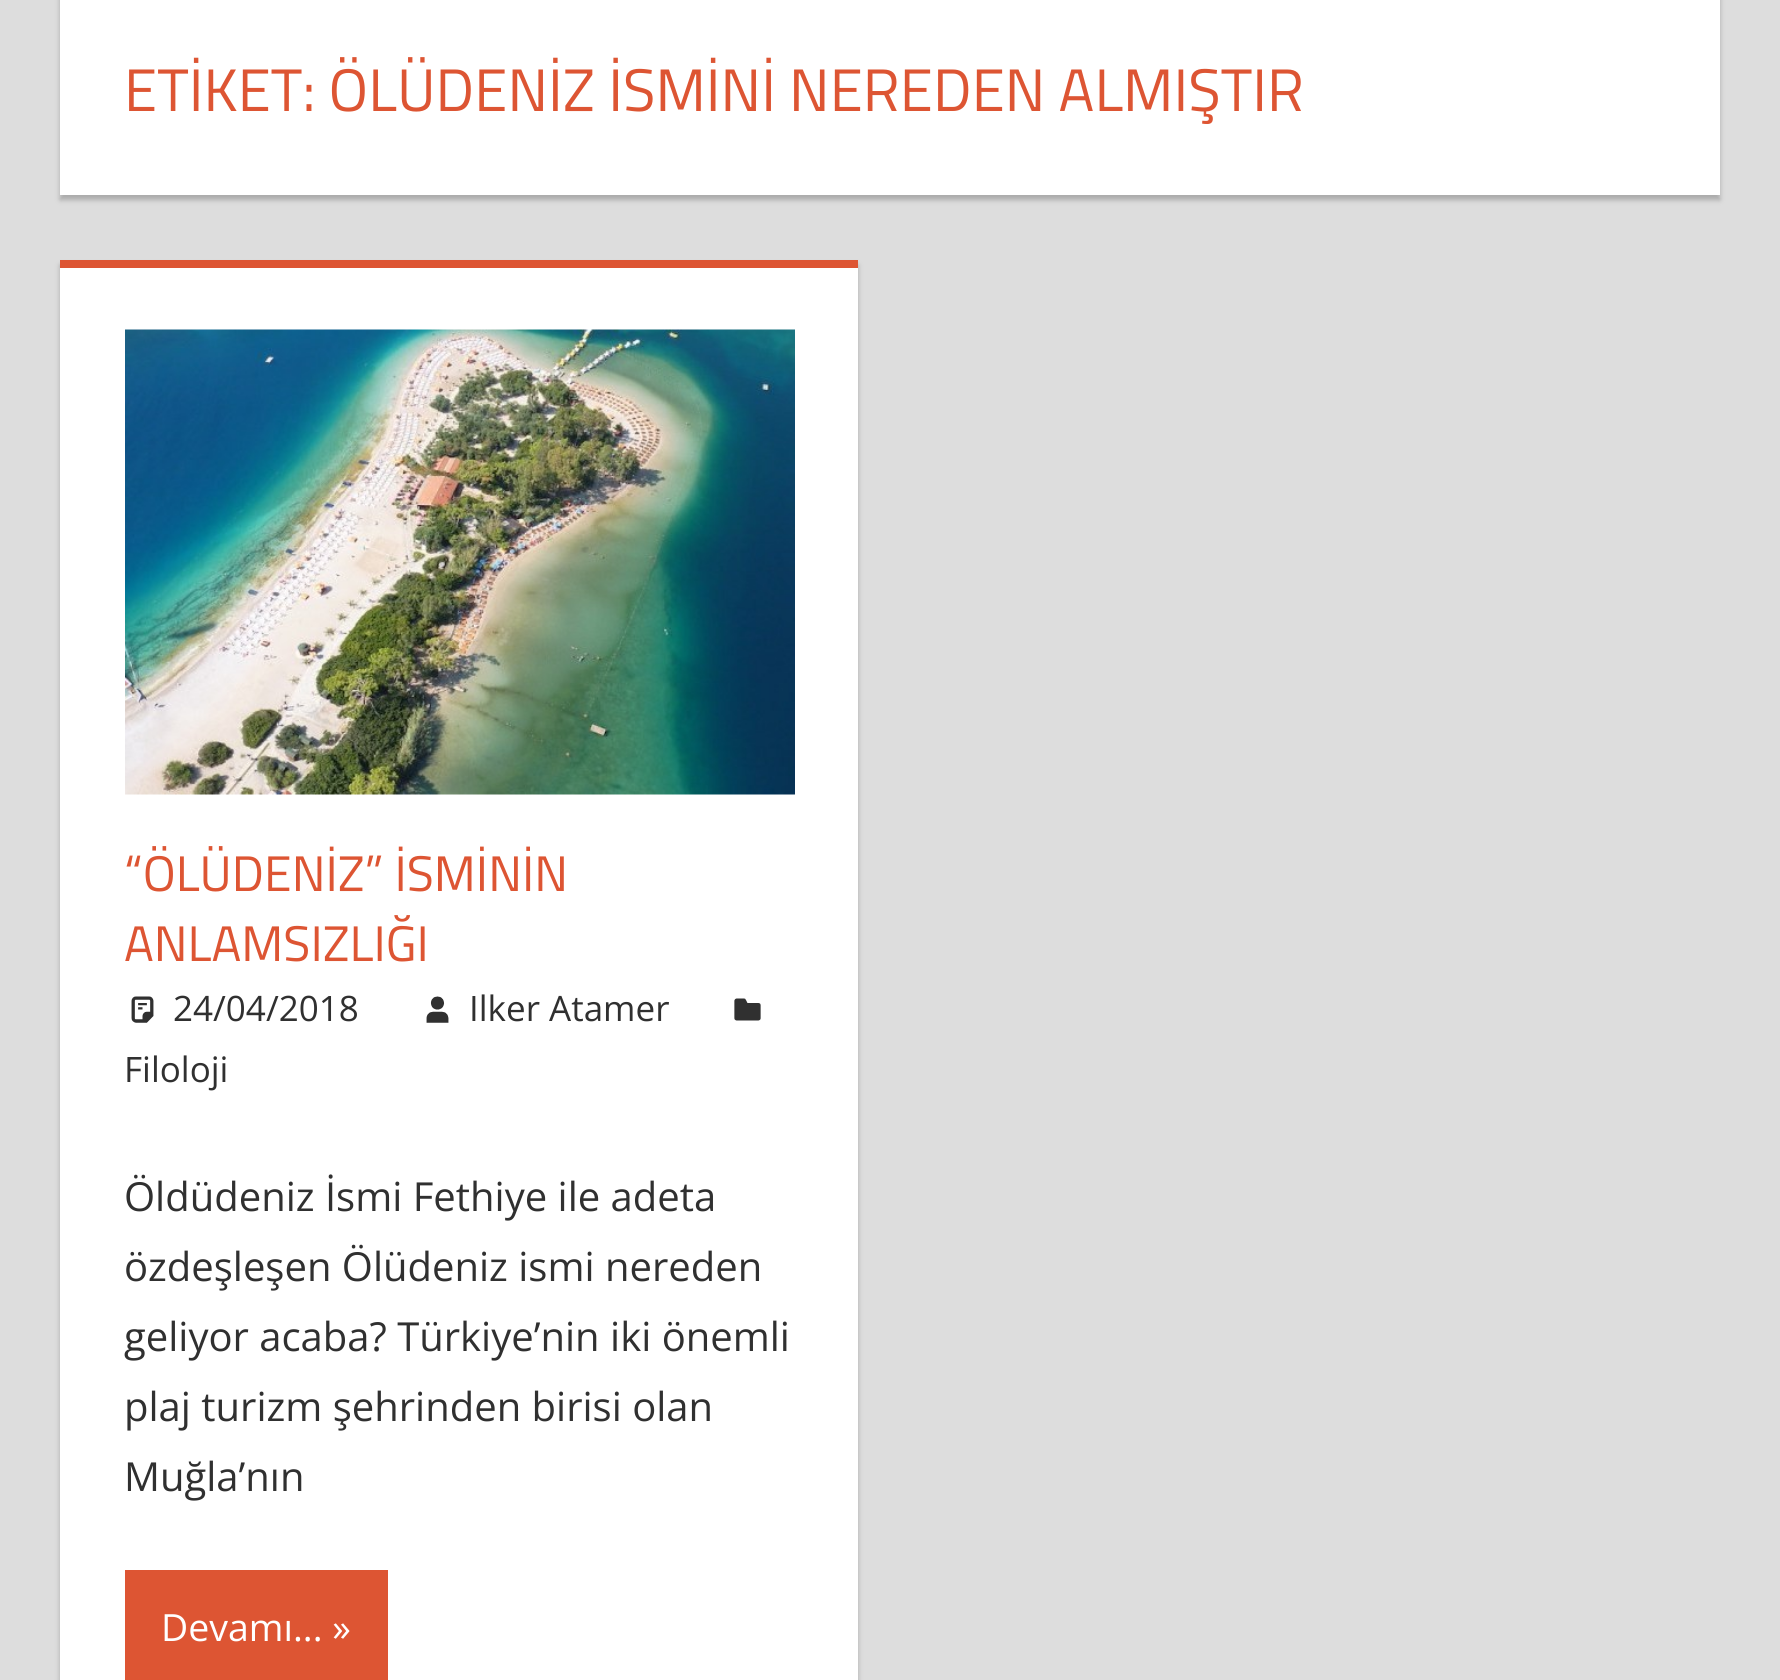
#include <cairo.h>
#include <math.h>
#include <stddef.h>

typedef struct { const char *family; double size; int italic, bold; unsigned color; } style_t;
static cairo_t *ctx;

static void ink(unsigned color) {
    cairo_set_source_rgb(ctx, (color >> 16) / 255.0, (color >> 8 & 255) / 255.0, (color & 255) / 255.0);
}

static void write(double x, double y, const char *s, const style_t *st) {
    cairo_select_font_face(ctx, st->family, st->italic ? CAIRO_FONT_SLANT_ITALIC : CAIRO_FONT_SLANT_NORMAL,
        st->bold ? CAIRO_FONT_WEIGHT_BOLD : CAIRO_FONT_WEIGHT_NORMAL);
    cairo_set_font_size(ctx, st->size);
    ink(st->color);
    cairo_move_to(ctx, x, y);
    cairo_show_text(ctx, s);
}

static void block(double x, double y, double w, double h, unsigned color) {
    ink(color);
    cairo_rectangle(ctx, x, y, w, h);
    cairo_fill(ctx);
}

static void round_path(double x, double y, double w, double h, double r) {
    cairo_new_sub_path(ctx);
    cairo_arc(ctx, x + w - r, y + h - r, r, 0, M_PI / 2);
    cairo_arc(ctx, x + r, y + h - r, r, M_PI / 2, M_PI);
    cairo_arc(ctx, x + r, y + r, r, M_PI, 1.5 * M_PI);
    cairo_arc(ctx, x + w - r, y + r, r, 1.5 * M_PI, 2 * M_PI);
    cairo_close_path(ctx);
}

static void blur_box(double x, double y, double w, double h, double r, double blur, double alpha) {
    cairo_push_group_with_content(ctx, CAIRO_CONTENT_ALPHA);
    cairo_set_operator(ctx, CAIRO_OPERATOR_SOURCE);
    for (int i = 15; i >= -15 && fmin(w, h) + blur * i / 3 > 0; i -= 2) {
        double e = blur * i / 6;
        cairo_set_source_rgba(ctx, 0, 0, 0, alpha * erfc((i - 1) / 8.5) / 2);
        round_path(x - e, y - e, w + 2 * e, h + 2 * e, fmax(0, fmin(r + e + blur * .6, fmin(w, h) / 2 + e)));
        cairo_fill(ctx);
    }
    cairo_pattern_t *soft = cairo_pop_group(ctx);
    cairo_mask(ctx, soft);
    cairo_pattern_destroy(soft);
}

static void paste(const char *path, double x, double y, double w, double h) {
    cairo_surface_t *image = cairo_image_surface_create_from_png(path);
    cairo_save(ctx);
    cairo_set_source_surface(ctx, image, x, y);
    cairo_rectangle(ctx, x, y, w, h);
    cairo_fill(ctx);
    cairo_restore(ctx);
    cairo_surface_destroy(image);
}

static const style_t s1 = {"Titillium Web", 60, 0, 0, 0xdd5533};
static const style_t s2 = {"Titillium Web", 50, 0, 0, 0xdd5533};
static const style_t s3 = {"Open Sans", 35, 0, 0, 0x303030};
static const style_t s4 = {"Open Sans", 40, 0, 0, 0x303030};
static const style_t s5 = {"Open Sans", 37.5, 0, 0, 0xffffff};

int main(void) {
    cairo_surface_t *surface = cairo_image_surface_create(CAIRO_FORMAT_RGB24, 1780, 1680);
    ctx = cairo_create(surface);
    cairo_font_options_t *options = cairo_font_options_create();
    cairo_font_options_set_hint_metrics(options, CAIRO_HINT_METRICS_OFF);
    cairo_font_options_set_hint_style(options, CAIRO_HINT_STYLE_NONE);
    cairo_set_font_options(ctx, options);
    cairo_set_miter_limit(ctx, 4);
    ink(0xdddddd);
    cairo_paint(ctx);
    ink(0xaaaaaa);
    blur_box(60, -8, 1660, 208, 0, 2.5, 1);
    block(60, 0, 1660, 195, 0xffffff);
    write(124, 111, "ETİKET: ÖLÜDENİZ İSMİNİ NEREDEN ALMIŞTIR", &s1);
    ink(0xaaaaaa);
    blur_box(60, 265, 798, 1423, 0, 2.5, 1);
    block(60, 268, 798, 1412, 0xffffff);
    block(60, 260, 798, 8, 0xdd5533);
    paste("pic1.png", 125, 329, 670, 466);
    write(124, 891, "“ÖLÜDENİZ” İSMİNİN", &s2);
    write(124, 961, "ANLAMSIZLIĞI", &s2);
    paste("pic2.png", 131, 996, 23, 27);
    write(173, 1021, "24/04/2018", &s3);
    paste("pic3.png", 426, 996, 23, 27);
    write(469, 1021, "Ilker Atamer", &s3);
    paste("pic4.png", 734, 998, 27, 23);
    write(124, 1082, "Filoloji", &s3);
    write(124, 1211, "Öldüdeniz İsmi Fethiye ile adeta", &s4);
    write(124, 1281, "özdeşleşen Ölüdeniz ismi nereden", &s4);
    write(124, 1351, "geliyor acaba? Türkiye’nin iki önemli", &s4);
    write(124, 1421, "plaj turizm şehrinden birisi olan", &s4);
    write(124, 1491, "Muğla’nın", &s4);
    block(125, 1570, 263, 110, 0xdd5533);
    write(161, 1641, "Devamı... »", &s5);
    cairo_surface_write_to_png(surface, "screenshot.png");
    cairo_font_options_destroy(options);
    cairo_destroy(ctx);
    cairo_surface_destroy(surface);
    return 0;
}
